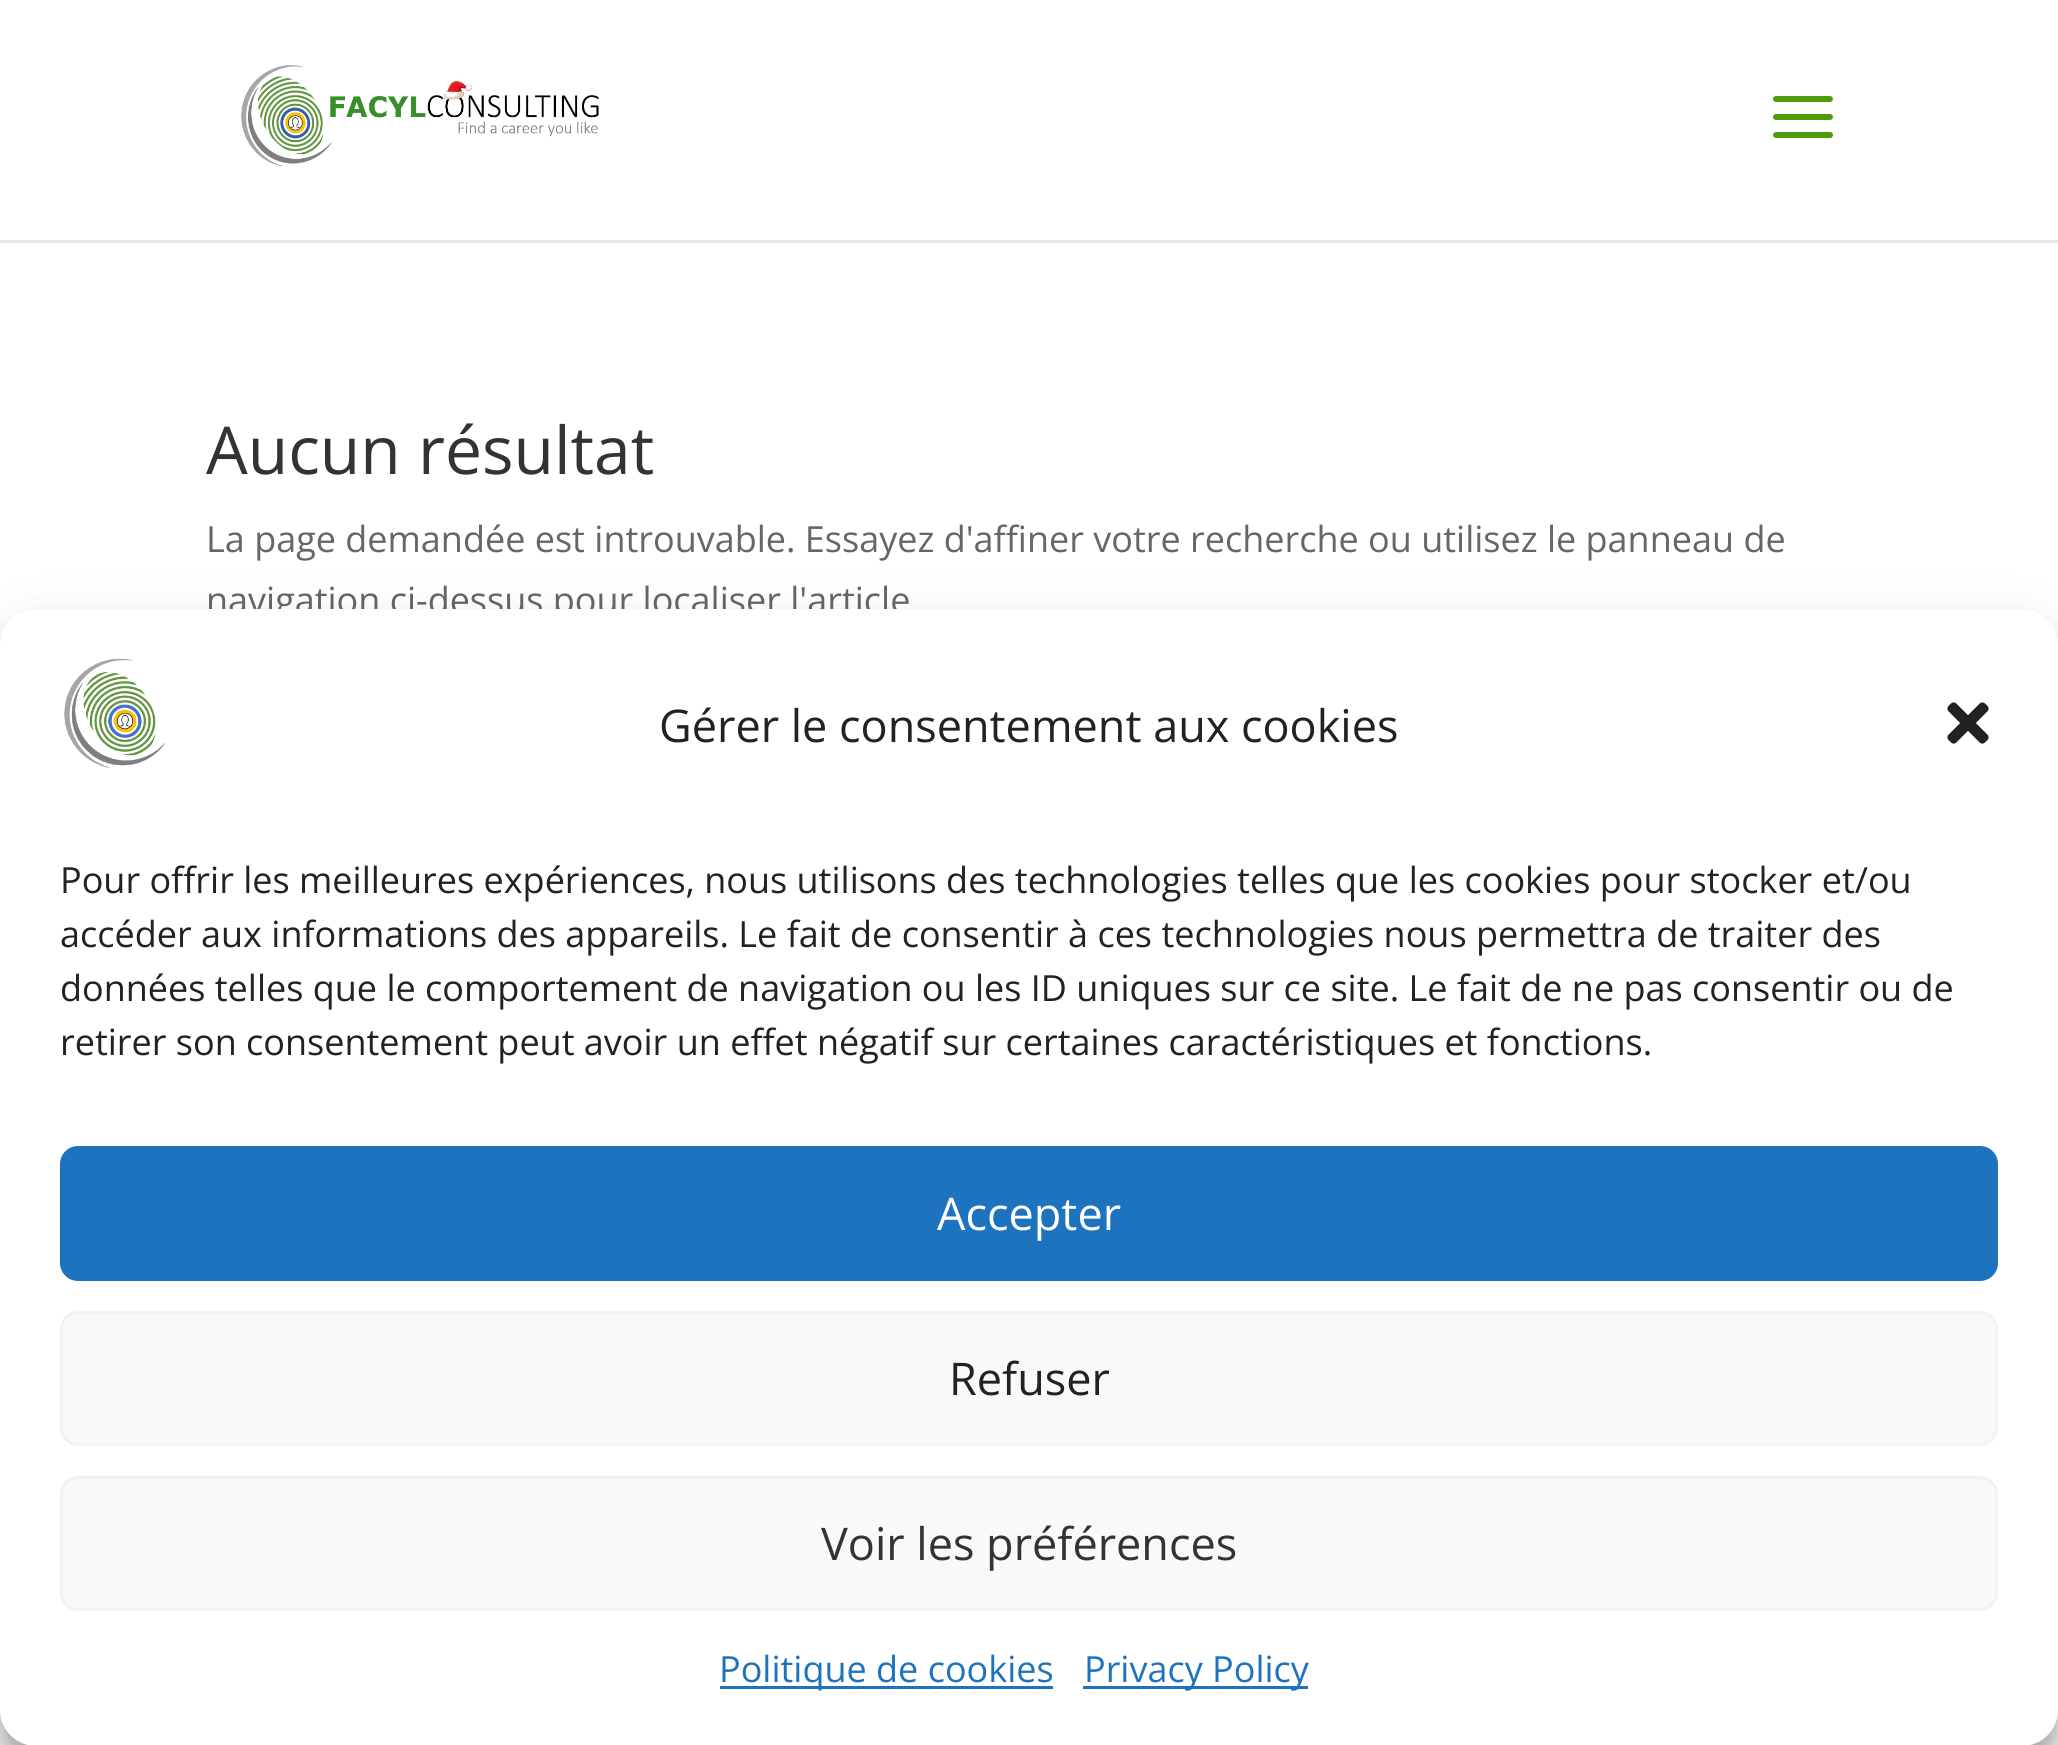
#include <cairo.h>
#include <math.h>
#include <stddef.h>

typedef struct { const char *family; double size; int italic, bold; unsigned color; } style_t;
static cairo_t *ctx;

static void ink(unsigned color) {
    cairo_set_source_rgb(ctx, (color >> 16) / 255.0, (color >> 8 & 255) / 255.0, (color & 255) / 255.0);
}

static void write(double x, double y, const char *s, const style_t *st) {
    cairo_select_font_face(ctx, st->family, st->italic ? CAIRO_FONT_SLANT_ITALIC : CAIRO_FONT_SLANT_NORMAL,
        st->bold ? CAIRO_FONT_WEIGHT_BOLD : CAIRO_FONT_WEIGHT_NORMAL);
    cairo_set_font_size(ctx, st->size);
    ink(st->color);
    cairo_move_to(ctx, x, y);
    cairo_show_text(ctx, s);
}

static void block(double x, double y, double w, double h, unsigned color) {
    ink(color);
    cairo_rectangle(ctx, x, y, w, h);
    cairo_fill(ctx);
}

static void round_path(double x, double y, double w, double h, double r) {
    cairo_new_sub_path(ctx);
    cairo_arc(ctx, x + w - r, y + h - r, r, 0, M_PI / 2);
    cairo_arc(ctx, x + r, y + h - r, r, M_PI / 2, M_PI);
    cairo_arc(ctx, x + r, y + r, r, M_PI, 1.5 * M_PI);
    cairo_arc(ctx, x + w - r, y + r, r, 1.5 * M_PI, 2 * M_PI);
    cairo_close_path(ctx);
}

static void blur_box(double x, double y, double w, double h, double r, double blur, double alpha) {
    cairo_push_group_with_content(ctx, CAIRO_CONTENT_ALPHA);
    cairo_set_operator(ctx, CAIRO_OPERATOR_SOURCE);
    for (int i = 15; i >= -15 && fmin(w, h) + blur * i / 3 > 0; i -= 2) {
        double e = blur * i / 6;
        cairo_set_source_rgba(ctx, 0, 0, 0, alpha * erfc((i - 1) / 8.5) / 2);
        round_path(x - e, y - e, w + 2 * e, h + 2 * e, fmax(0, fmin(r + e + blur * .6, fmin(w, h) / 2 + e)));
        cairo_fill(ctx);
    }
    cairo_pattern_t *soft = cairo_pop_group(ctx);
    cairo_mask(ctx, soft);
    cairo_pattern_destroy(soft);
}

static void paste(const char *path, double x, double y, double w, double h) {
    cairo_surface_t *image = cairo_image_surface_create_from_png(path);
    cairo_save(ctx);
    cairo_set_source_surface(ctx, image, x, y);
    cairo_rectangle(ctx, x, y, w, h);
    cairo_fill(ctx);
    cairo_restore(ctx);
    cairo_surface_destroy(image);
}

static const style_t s1 = {"Open Sans", 66, 0, 0, 0x333333};
static const style_t s2 = {"Open Sans", 36, 0, 0, 0x666666};
static const style_t s3 = {"Open Sans", 45, 0, 0, 0x222222};
static const style_t s4 = {"Open Sans", 36, 0, 0, 0x222222};
static const style_t s5 = {"Open Sans", 45, 0, 0, 0xffffff};
static const style_t s6 = {"Open Sans", 45, 0, 0, 0x333333};
static const style_t s7 = {"Open Sans", 36, 0, 0, 0x1e73be};

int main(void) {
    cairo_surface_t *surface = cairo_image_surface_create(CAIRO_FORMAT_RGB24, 2058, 1745);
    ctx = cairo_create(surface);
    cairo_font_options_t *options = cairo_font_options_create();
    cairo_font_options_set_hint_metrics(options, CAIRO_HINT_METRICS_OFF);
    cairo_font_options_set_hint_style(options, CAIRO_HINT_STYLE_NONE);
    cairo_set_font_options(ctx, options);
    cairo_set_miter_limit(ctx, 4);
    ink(0xffffff);
    cairo_paint(ctx);
    block(0, 240, 2058, 3, 0xe6e6e6);
    paste("pic1.png", 241, 65, 358, 102);
    paste("pic2.png", 1773, 96, 60, 42);
    write(206, 474, "Aucun résultat", &s1);
    write(206, 552, "La page demandée est introuvable. Essayez d'affiner votre recherche ou utilisez le panneau de", &s2);
    write(206, 613, "navigation ci-dessus pour localiser l'article", &s2);
    ink(0x000000);
    blur_box(0, 627, 2058, 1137, 36, 9, 0.23);
    blur_box(0, 639, 2058, 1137, 36, 30, 0.19);
    ink(0x808080);
    blur_box(1848, 1524, 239, 180, 6, 7.5, 1);
    ink(0xffffff);
    round_path(0, 609, 2058, 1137, 36);
    cairo_fill(ctx);
    paste("pic3.png", 64, 658, 101, 110);
    write(659, 742, "Gérer le consentement aux cookies", &s3);
    paste("pic4.png", 1947, 702, 42, 42);
    write(60, 893, "Pour offrir les meilleures expériences, nous utilisons des technologies telles que les cookies pour stocker et/ou", &s4);
    write(60, 947, "accéder aux informations des appareils. Le fait de consentir à ces technologies nous permettra de traiter des", &s4);
    write(60, 1001, "données telles que le comportement de navigation ou les ID uniques sur ce site. Le fait de ne pas consentir ou de", &s4);
    write(60, 1055, "retirer son consentement peut avoir un effet négatif sur certaines caractéristiques et fonctions.", &s4);
    ink(0x1e73be);
    round_path(61.5, 1147.5, 1935, 132, 16.5);
    cairo_fill_preserve(ctx);
    cairo_set_line_width(ctx, 3);
    cairo_stroke(ctx);
    write(937, 1230, "Accepter", &s5);
    ink(0xf9f9f9);
    round_path(61.5, 1312.5, 1935, 132, 16.5);
    cairo_fill_preserve(ctx);
    ink(0xf2f2f2);
    cairo_stroke(ctx);
    write(949, 1395, "Refuser", &s3);
    ink(0xf9f9f9);
    round_path(61.5, 1477.5, 1935, 132, 16.5);
    cairo_fill_preserve(ctx);
    ink(0xf2f2f2);
    cairo_stroke(ctx);
    write(821, 1560, "Voir les préférences", &s6);
    block(720, 1686, 333, 3, 0x1e73be);
    write(719, 1682, "Politique de cookies", &s7);
    block(1083, 1686, 225, 3, 0x1e73be);
    write(1084, 1682, "Privacy Policy", &s7);
    cairo_surface_write_to_png(surface, "screenshot.png");
    cairo_font_options_destroy(options);
    cairo_destroy(ctx);
    cairo_surface_destroy(surface);
    return 0;
}
